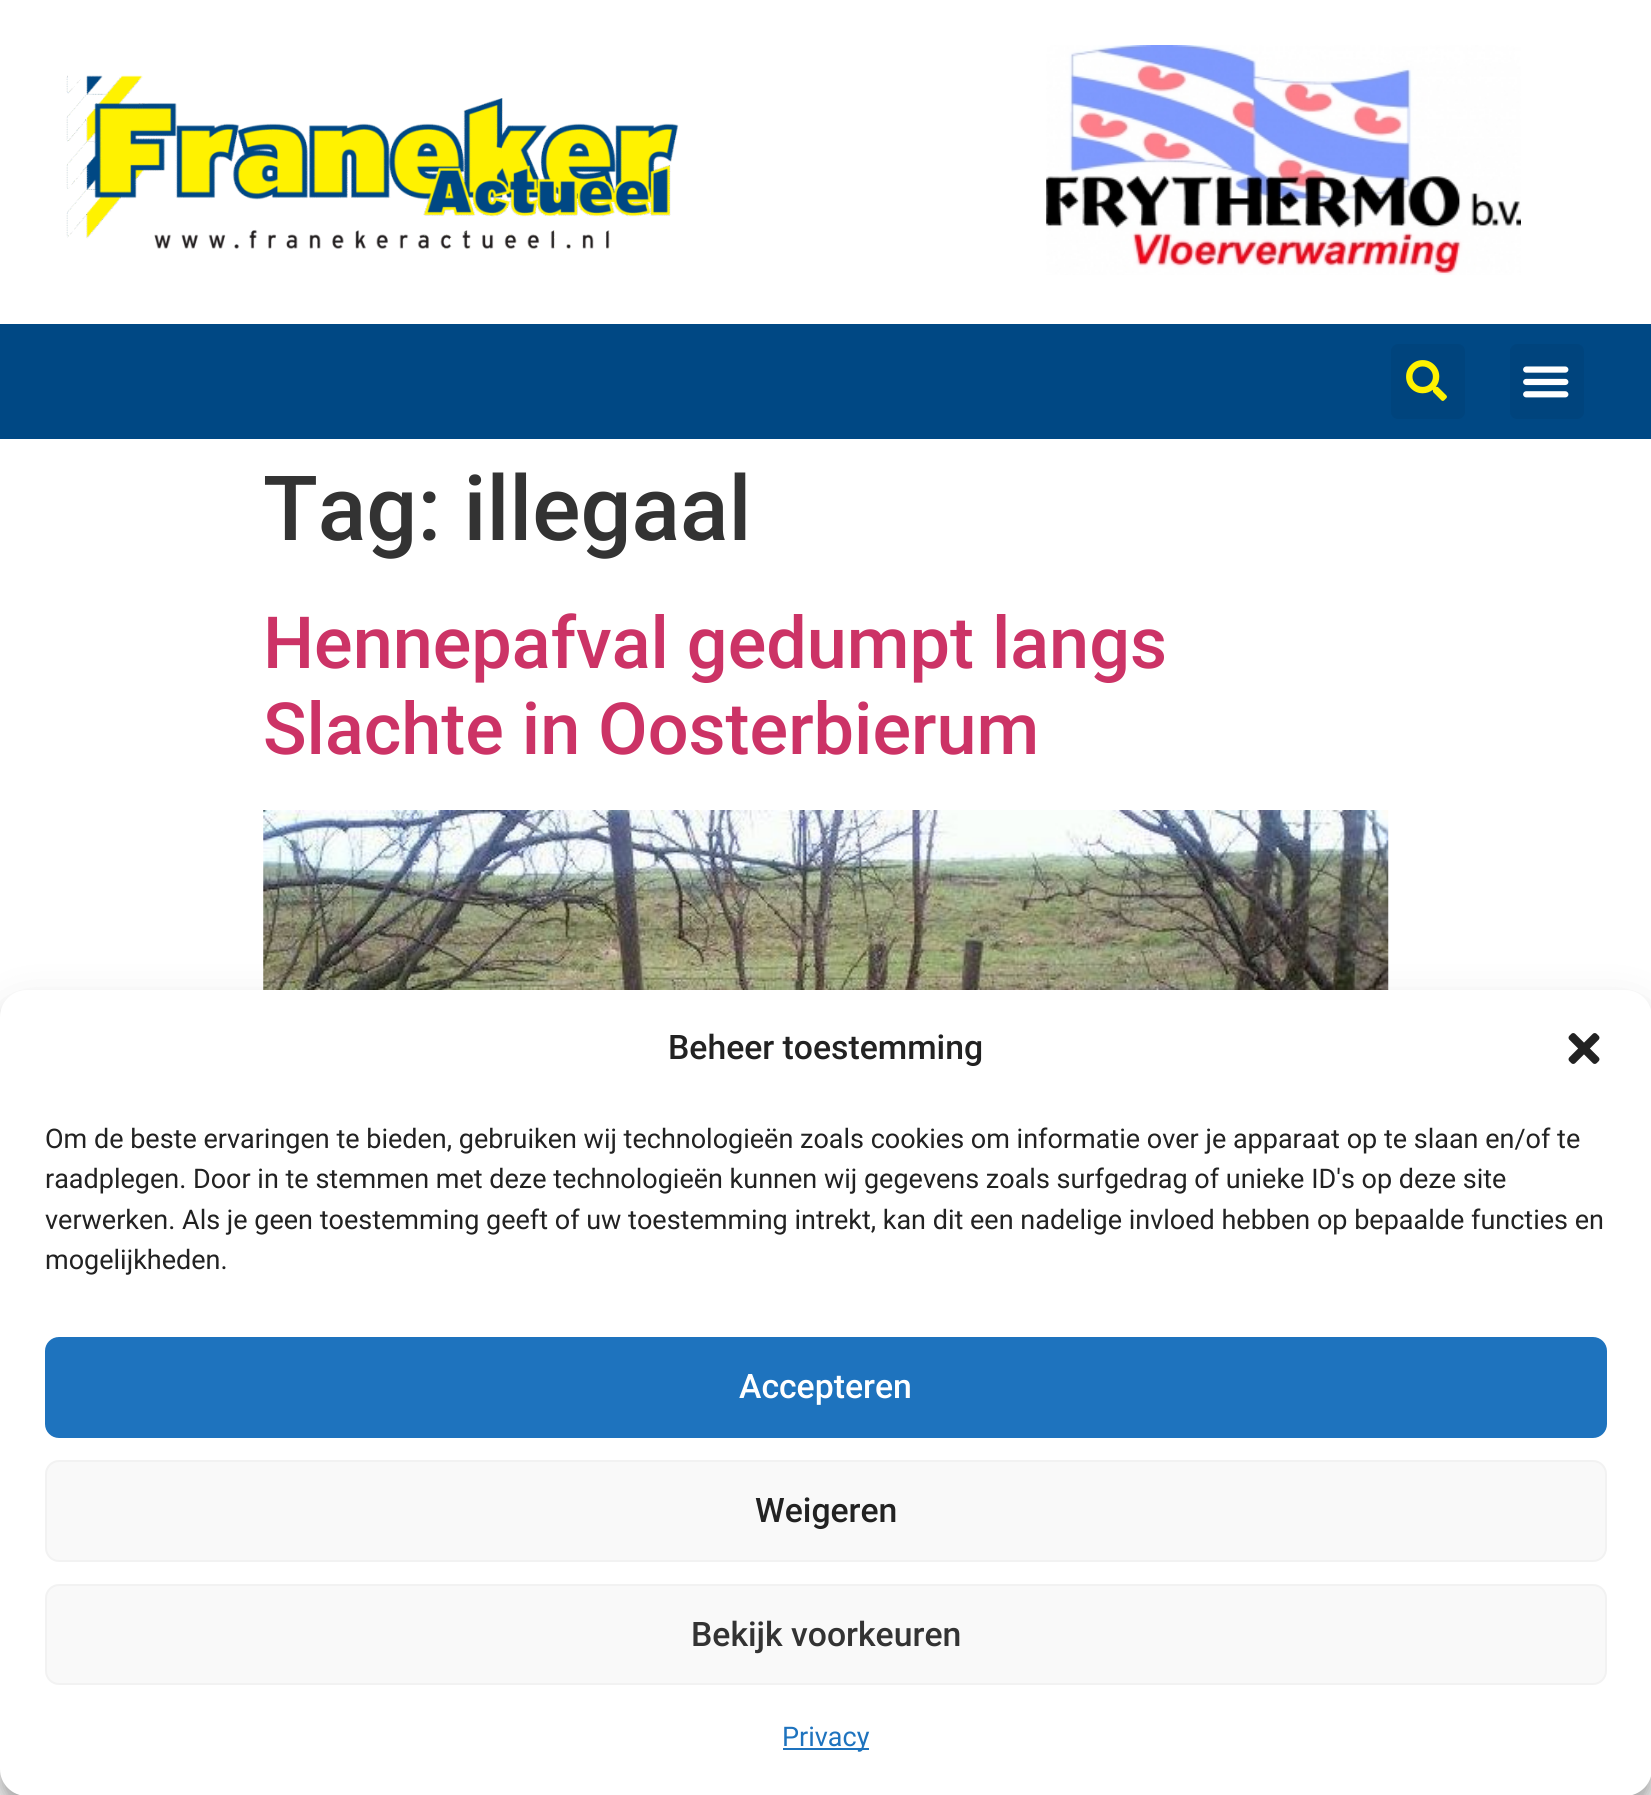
#include <cairo.h>
#include <math.h>
#include <stddef.h>

typedef struct { const char *family; double size; int italic, bold; unsigned color; } style_t;
static cairo_t *ctx;

static void ink(unsigned color) {
    cairo_set_source_rgb(ctx, (color >> 16) / 255.0, (color >> 8 & 255) / 255.0, (color & 255) / 255.0);
}

static void write(double x, double y, const char *s, const style_t *st) {
    cairo_select_font_face(ctx, st->family, st->italic ? CAIRO_FONT_SLANT_ITALIC : CAIRO_FONT_SLANT_NORMAL,
        st->bold ? CAIRO_FONT_WEIGHT_BOLD : CAIRO_FONT_WEIGHT_NORMAL);
    cairo_set_font_size(ctx, st->size);
    ink(st->color);
    cairo_move_to(ctx, x, y);
    cairo_show_text(ctx, s);
}

static void block(double x, double y, double w, double h, unsigned color) {
    ink(color);
    cairo_rectangle(ctx, x, y, w, h);
    cairo_fill(ctx);
}

static void round_path(double x, double y, double w, double h, double r) {
    cairo_new_sub_path(ctx);
    cairo_arc(ctx, x + w - r, y + h - r, r, 0, M_PI / 2);
    cairo_arc(ctx, x + r, y + h - r, r, M_PI / 2, M_PI);
    cairo_arc(ctx, x + r, y + r, r, M_PI, 1.5 * M_PI);
    cairo_arc(ctx, x + w - r, y + r, r, 1.5 * M_PI, 2 * M_PI);
    cairo_close_path(ctx);
}

static void blur_box(double x, double y, double w, double h, double r, double blur, double alpha) {
    cairo_push_group_with_content(ctx, CAIRO_CONTENT_ALPHA);
    cairo_set_operator(ctx, CAIRO_OPERATOR_SOURCE);
    for (int i = 15; i >= -15 && fmin(w, h) + blur * i / 3 > 0; i -= 2) {
        double e = blur * i / 6;
        cairo_set_source_rgba(ctx, 0, 0, 0, alpha * erfc((i - 1) / 8.5) / 2);
        round_path(x - e, y - e, w + 2 * e, h + 2 * e, fmax(0, fmin(r + e + blur * .6, fmin(w, h) / 2 + e)));
        cairo_fill(ctx);
    }
    cairo_pattern_t *soft = cairo_pop_group(ctx);
    cairo_mask(ctx, soft);
    cairo_pattern_destroy(soft);
}

static void paste(const char *path, double x, double y, double w, double h) {
    cairo_surface_t *image = cairo_image_surface_create_from_png(path);
    cairo_save(ctx);
    cairo_set_source_surface(ctx, image, x, y);
    cairo_rectangle(ctx, x, y, w, h);
    cairo_fill(ctx);
    cairo_restore(ctx);
    cairo_surface_destroy(image);
}

static const style_t s1 = {"Roboto Medium", 90, 0, 0, 0x333333};
static const style_t s2 = {"Roboto Medium", 72, 0, 0, 0xcc3366};
static const style_t s3 = {"Roboto Medium", 33.75, 0, 0, 0x222222};
static const style_t s4 = {"Roboto", 27, 0, 0, 0x222222};
static const style_t s5 = {"Roboto Medium", 33.75, 0, 0, 0xffffff};
static const style_t s6 = {"Roboto Medium", 33.75, 0, 0, 0x333333};
static const style_t s7 = {"Roboto", 27, 0, 0, 0x1e73be};

int main(void) {
    cairo_surface_t *surface = cairo_image_surface_create(CAIRO_FORMAT_RGB24, 1651, 1795);
    ctx = cairo_create(surface);
    cairo_font_options_t *options = cairo_font_options_create();
    cairo_font_options_set_hint_metrics(options, CAIRO_HINT_METRICS_OFF);
    cairo_font_options_set_hint_style(options, CAIRO_HINT_STYLE_NONE);
    cairo_set_font_options(ctx, options);
    cairo_set_miter_limit(ctx, 4);
    ink(0xffffff);
    cairo_paint(ctx);
    paste("pic1.png", 66, 75, 613, 175);
    paste("pic2.png", 1046, 45, 475, 230);
    block(0, 324, 1651, 115, 0x004884);
    ink(0x00447d);
    round_path(1391, 344, 74, 75, 7);
    cairo_fill(ctx);
    paste("pic3.png", 1406, 360, 41, 41);
    round_path(1510, 344, 74, 75, 7);
    cairo_fill(ctx);
    paste("pic4.png", 1523, 366, 46, 32);
    write(263, 540, "Tag: illegaal", &s1);
    write(263, 668, "Hennepafval gedumpt langs", &s2);
    write(263, 754, "Slachte in Oosterbierum", &s2);
    paste("pic5.png", 263, 810, 1126, 180);
    ink(0x000000);
    blur_box(0, 1004, 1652, 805, 27, 7, 0.23);
    blur_box(0, 1013, 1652, 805, 27, 22.5, 0.19);
    ink(0xffffff);
    round_path(0, 990, 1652, 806, 27);
    cairo_fill(ctx);
    write(668, 1059, "Beheer toestemming", &s3);
    paste("pic6.png", 1568, 1033, 32, 31);
    write(45, 1148, "Om de beste ervaringen te bieden, gebruiken wij technologieën zoals cookies om informatie over je apparaat op te slaan en/of te", &s4);
    write(45, 1188, "raadplegen. Door in te stemmen met deze technologieën kunnen wij gegevens zoals surfgedrag of unieke ID's op deze site", &s4);
    write(45, 1229, "verwerken. Als je geen toestemming geeft of uw toestemming intrekt, kan dit een nadelige invloed hebben op bepaalde functies en", &s4);
    write(45, 1269, "mogelijkheden.", &s4);
    ink(0x1e73be);
    round_path(46, 1338, 1560, 99, 13);
    cairo_fill_preserve(ctx);
    cairo_stroke(ctx);
    write(739, 1398, "Accepteren", &s5);
    ink(0xf9f9f9);
    round_path(46, 1461, 1560, 100, 13);
    cairo_fill_preserve(ctx);
    ink(0xf2f2f2);
    cairo_stroke(ctx);
    write(755, 1522, "Weigeren", &s3);
    ink(0xf9f9f9);
    round_path(46, 1585, 1560, 99, 13);
    cairo_fill_preserve(ctx);
    ink(0xf2f2f2);
    cairo_stroke(ctx);
    write(691, 1646, "Bekijk voorkeuren", &s6);
    block(783, 1748, 86, 2, 0x1e73be);
    write(782, 1746, "Privacy", &s7);
    cairo_surface_write_to_png(surface, "screenshot.png");
    cairo_font_options_destroy(options);
    cairo_destroy(ctx);
    cairo_surface_destroy(surface);
    return 0;
}
